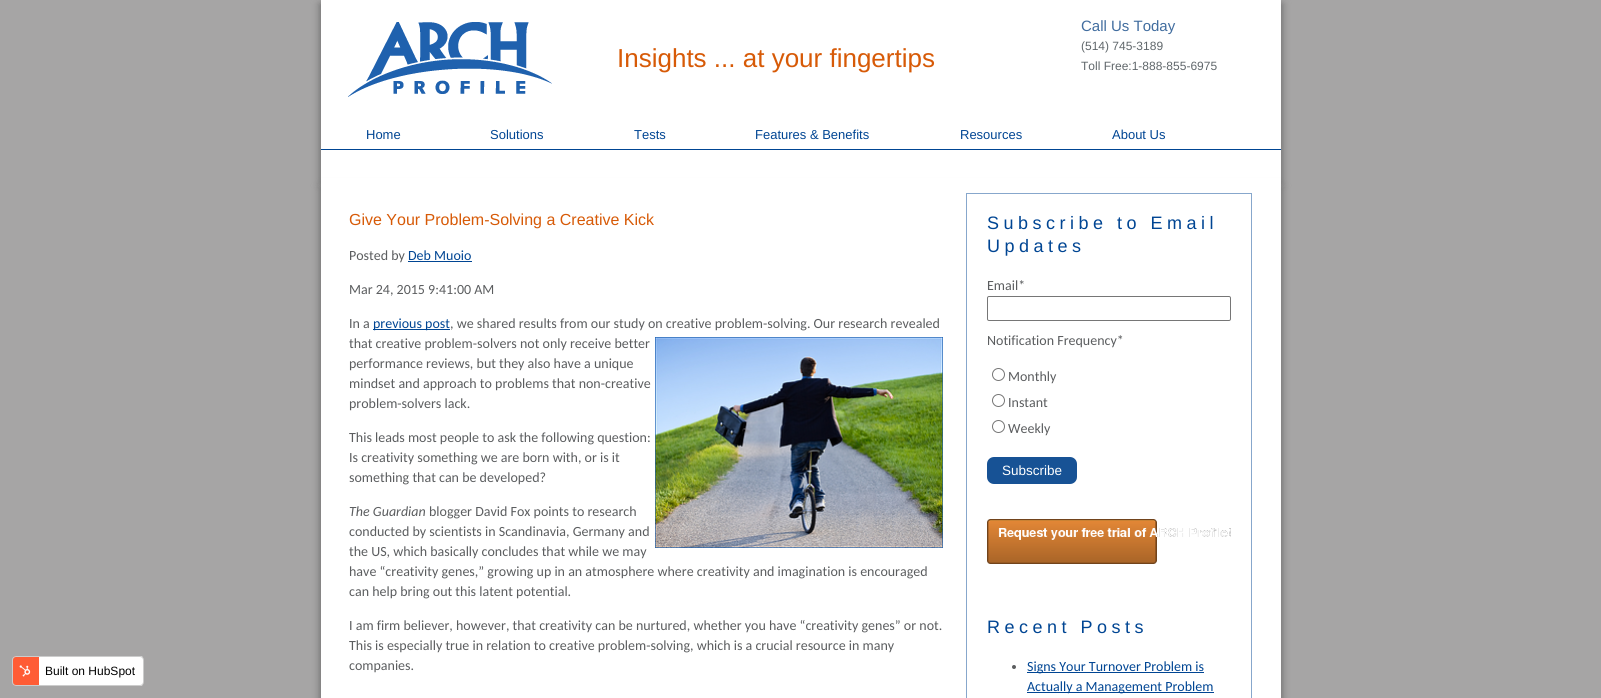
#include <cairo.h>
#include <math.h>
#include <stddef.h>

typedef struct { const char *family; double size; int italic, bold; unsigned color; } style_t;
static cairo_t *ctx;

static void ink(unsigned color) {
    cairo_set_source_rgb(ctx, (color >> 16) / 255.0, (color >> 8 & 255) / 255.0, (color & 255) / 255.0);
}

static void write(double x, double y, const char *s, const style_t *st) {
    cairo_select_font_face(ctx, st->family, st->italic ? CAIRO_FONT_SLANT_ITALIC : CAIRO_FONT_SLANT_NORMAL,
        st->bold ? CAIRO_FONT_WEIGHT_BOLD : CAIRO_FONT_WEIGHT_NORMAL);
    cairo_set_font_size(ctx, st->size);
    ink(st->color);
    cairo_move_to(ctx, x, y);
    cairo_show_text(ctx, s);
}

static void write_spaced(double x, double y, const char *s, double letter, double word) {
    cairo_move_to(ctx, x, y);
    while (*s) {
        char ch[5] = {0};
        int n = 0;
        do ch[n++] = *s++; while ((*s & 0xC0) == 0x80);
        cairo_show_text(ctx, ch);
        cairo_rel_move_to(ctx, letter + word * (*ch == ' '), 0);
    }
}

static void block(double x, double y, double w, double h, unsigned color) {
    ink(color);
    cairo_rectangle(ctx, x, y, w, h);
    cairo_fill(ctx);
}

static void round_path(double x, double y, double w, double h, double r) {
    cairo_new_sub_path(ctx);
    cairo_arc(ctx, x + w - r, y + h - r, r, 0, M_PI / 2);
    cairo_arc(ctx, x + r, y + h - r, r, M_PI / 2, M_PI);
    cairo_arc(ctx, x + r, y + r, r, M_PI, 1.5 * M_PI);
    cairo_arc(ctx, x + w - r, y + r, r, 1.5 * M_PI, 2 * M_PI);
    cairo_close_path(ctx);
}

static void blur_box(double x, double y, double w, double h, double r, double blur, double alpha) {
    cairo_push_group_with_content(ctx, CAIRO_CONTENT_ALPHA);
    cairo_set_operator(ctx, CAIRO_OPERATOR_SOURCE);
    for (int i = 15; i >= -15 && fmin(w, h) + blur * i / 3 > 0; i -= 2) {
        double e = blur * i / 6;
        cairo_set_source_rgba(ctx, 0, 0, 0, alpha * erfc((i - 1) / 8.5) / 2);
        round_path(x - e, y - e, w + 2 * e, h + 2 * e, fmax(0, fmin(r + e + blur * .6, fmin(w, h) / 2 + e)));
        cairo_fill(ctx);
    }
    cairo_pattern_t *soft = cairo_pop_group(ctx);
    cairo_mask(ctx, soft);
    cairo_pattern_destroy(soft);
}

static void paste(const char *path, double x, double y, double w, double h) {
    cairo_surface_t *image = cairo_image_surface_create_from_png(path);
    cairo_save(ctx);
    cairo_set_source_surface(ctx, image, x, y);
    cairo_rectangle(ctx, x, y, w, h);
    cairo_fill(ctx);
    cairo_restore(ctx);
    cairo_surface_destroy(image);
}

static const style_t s1 = {"Liberation Sans", 26, 0, 0, 0xd75a07};
static const style_t s2 = {"Liberation Sans", 15, 0, 0, 0x416d9f};
static const style_t s3 = {"Liberation Sans", 12, 0, 0, 0x60676b};
static const style_t s4 = {"Liberation Sans", 13, 0, 0, 0x004593};
static const style_t s5 = {"Liberation Sans", 12, 0, 0, 0x000000};
static const style_t s6 = {"Liberation Sans", 16, 0, 0, 0xd75a07};
static const style_t s7 = {"Carlito", 14, 0, 0, 0x5b5d5f};
static const style_t s8 = {"Carlito", 14, 0, 0, 0x004593};
static const style_t s9 = {"Carlito", 14, 1, 0, 0x5b5d5f};
static const style_t s10 = {"Liberation Sans", 13.5, 0, 0, 0xffffff};

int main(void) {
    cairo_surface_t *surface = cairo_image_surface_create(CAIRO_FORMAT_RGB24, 1601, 698);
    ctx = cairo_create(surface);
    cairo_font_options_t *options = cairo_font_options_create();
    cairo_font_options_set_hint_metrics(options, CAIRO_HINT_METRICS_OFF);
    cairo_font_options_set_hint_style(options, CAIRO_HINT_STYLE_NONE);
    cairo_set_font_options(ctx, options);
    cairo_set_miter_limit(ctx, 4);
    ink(0xa6a5a5);
    cairo_paint(ctx);
    ink(0x6a6a6a);
    blur_box(320, 4, 962, 180, 0, 4, 1);
    block(321, 0, 960, 178, 0xffffff);
    paste("pic1.png", 348, 22, 204, 75);
    write(617, 67, "Insights ... at your fingertips", &s1);
    write(1081, 31, "Call Us Today", &s2);
    write(1081, 50, "(514) 745-3189", &s3);
    write(1081, 70, "Toll Free:1-888-855-6975", &s3);
    block(321, 149, 960, 1, 0x004593);
    write(366, 139, "Home", &s4);
    write(490, 139, "Solutions", &s4);
    write(634, 139, "Tests", &s4);
    write(755, 139, "Features & Benefits", &s4);
    write(960, 139, "Resources", &s4);
    write(1112, 139, "About Us", &s4);
    cairo_save(ctx);
    round_path(12, 656, 132, 30, 4);
    cairo_clip(ctx);
    block(13, 656, 26, 30, 0xff5c35);
    block(39, 656, 104, 30, 0xffffff);
    cairo_restore(ctx);
    round_path(12.5, 656.5, 131, 29, 3.5);
    ink(0xcccccc);
    cairo_set_line_width(ctx, 1);
    cairo_stroke(ctx);
    paste("pic2.png", 19, 665, 12, 12);
    write(45, 675, "Built on HubSpot", &s5);
    ink(0x6a6a6a);
    blur_box(320, 187, 962, 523, 0, 4, 1);
    block(321, 178, 960, 520, 0xffffff);
    write(349, 225, "Give Your Problem-Solving a Creative Kick", &s6);
    write(349, 260, "Posted by", &s7);
    write(408, 260, "Deb Muoio", &s8);
    block(408, 261, 64, 1, 0x004593);
    write(349, 294, "Mar 24, 2015 9:41:00 AM", &s7);
    write(349, 328, "In a", &s7);
    block(373, 329, 77, 1, 0x004593);
    write(373, 328, "previous post", &s8);
    write(450, 328, ", we shared results from our study on creative problem-solving. Our research revealed", &s7);
    write(349, 348, "that creative problem-solvers not only receive better", &s7);
    paste("pic3.png", 655, 337, 288, 211);
    write(349, 368, "performance reviews, but they also have a unique", &s7);
    write(349, 388, "mindset and approach to problems that non-creative", &s7);
    write(349, 408, "problem-solvers lack.", &s7);
    write(349, 442, "This leads most people to ask the following question:", &s7);
    write(349, 462, "Is creativity something we are born with, or is it", &s7);
    write(349, 482, "something that can be developed?", &s7);
    write(349, 516, "The Guardian", &s9);
    write(429, 516, "blogger David Fox points to research", &s7);
    write(349, 536, "conducted by scientists in Scandinavia, Germany and", &s7);
    write(349, 556, "the US, which basically concludes that while we may", &s7);
    write(349, 576, "have “creativity genes,” growing up in an atmosphere where creativity and imagination is encouraged", &s7);
    write(349, 596, "can help bring out this latent potential.", &s7);
    write(349, 630, "I am firm believer, however, that creativity can be nurtured, whether you have “creativity genes” or not.", &s7);
    write(349, 650, "This is especially true in relation to creative problem-solving, which is a crucial resource in many", &s7);
    write(349, 670, "companies.", &s7);
    cairo_rectangle(ctx, 966.5, 193.5, 285, 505);
    ink(0x87a7cc);
    cairo_stroke(ctx);
    cairo_select_font_face(ctx, "Liberation Sans", CAIRO_FONT_SLANT_NORMAL, CAIRO_FONT_WEIGHT_NORMAL);
    cairo_set_font_size(ctx, 18);
    ink(0x004593);
    write_spaced(987, 229, "Subscribe to Email", 4.5, 0);
    write_spaced(987, 252, "Updates", 4.5, 0);
    write(987, 290, "Email*", &s7);
    round_path(987.5, 296.5, 243, 24, 1.5);
    ink(0x767676);
    cairo_stroke(ctx);
    write(987, 345, "Notification Frequency*", &s7);
    cairo_new_path(ctx);
    cairo_arc(ctx, 998.5, 374.5, 6, 0, 2 * M_PI);
    ink(0x767676);
    cairo_stroke(ctx);
    write(1008, 381, "Monthly", &s7);
    cairo_new_path(ctx);
    cairo_arc(ctx, 998.5, 400.5, 6, 0, 2 * M_PI);
    ink(0x767676);
    cairo_stroke(ctx);
    write(1008, 407, "Instant", &s7);
    cairo_new_path(ctx);
    cairo_arc(ctx, 998.5, 426.5, 6, 0, 2 * M_PI);
    ink(0x767676);
    cairo_stroke(ctx);
    write(1008, 433, "Weekly", &s7);
    ink(0x175295);
    round_path(987, 457, 90, 27, 7);
    cairo_fill(ctx);
    write(1002, 475, "Subscribe", &s10);
    paste("pic4.png", 987, 519, 244, 45);
    cairo_set_font_size(ctx, 18);
    ink(0x004593);
    write_spaced(987, 633, "Recent Posts", 4.5, 0);
    ink(0x5b5d5f);
    cairo_new_path(ctx);
    cairo_arc(ctx, 1014, 667, 2, 0, 2 * M_PI);
    cairo_fill(ctx);
    block(1027, 672, 177, 1, 0x004593);
    write(1027, 671, "Signs Your Turnover Problem is", &s8);
    block(1027, 692, 187, 1, 0x004593);
    write(1027, 691, "Actually a Management Problem", &s8);
    cairo_surface_write_to_png(surface, "screenshot.png");
    cairo_font_options_destroy(options);
    cairo_destroy(ctx);
    cairo_surface_destroy(surface);
    return 0;
}
